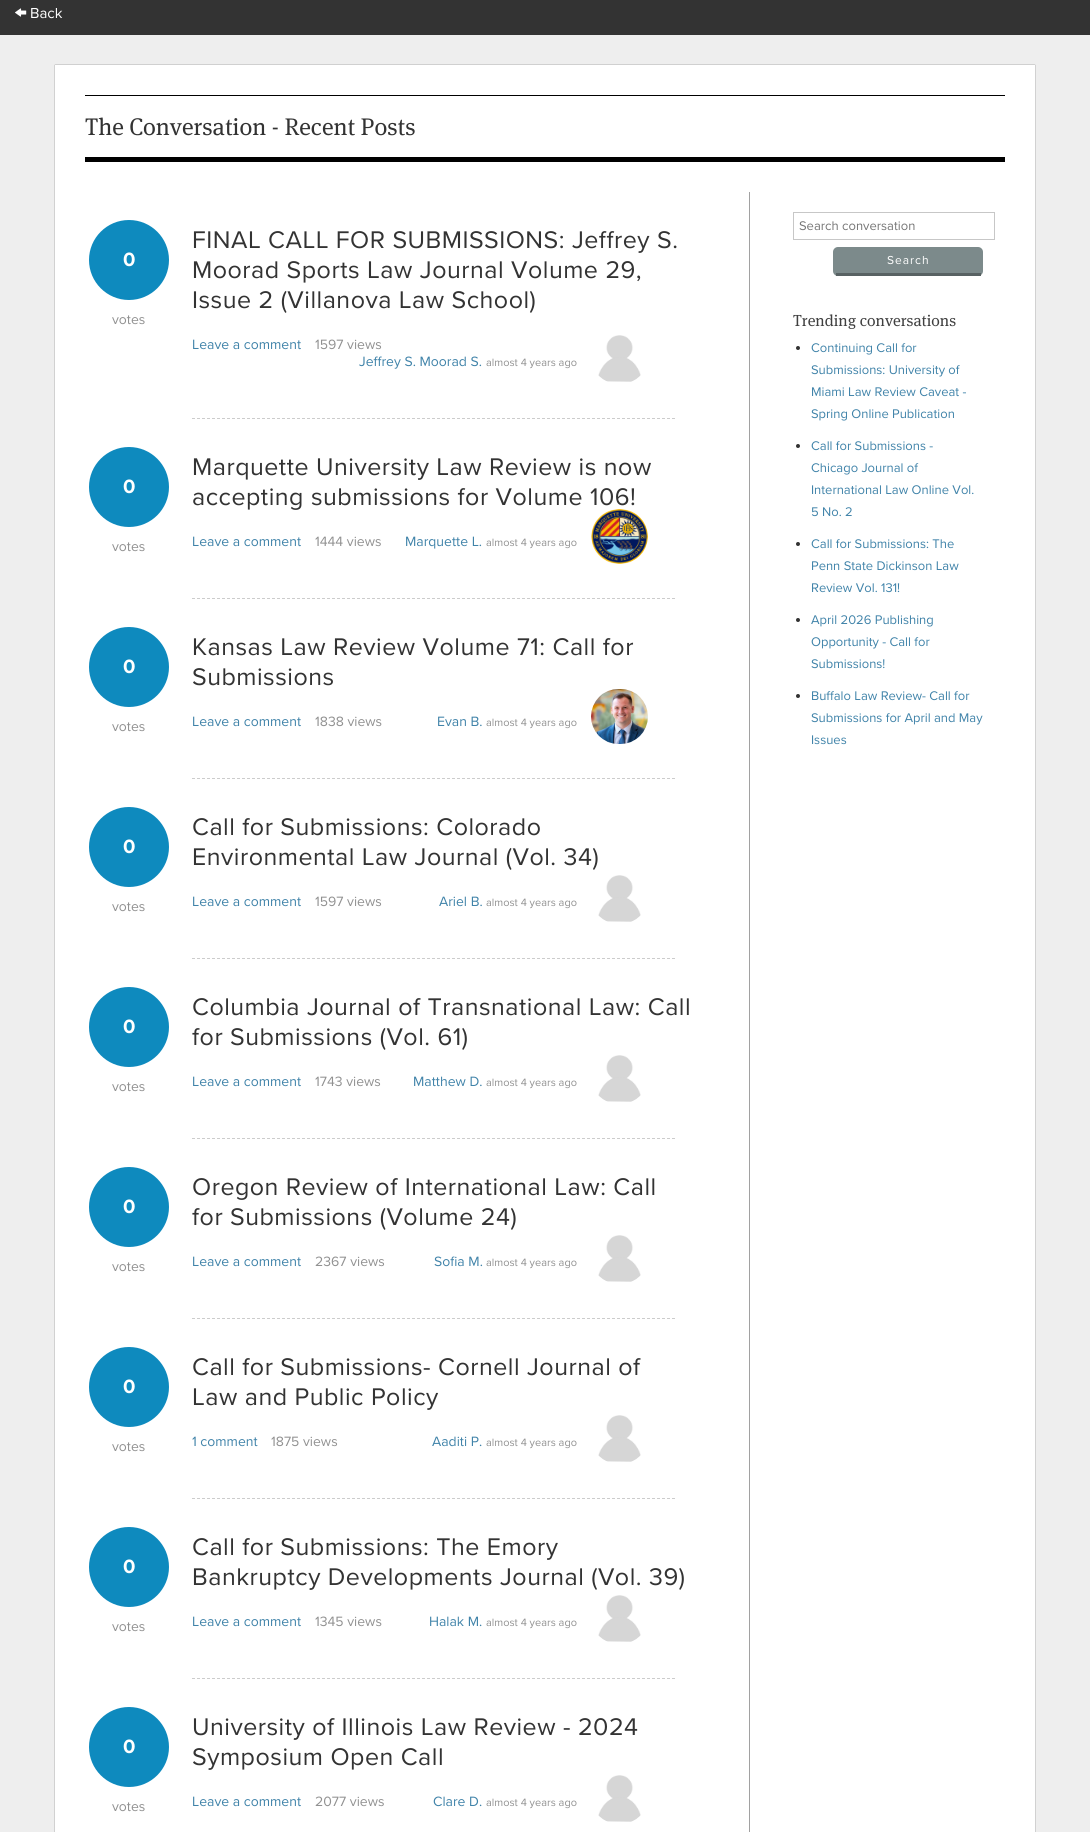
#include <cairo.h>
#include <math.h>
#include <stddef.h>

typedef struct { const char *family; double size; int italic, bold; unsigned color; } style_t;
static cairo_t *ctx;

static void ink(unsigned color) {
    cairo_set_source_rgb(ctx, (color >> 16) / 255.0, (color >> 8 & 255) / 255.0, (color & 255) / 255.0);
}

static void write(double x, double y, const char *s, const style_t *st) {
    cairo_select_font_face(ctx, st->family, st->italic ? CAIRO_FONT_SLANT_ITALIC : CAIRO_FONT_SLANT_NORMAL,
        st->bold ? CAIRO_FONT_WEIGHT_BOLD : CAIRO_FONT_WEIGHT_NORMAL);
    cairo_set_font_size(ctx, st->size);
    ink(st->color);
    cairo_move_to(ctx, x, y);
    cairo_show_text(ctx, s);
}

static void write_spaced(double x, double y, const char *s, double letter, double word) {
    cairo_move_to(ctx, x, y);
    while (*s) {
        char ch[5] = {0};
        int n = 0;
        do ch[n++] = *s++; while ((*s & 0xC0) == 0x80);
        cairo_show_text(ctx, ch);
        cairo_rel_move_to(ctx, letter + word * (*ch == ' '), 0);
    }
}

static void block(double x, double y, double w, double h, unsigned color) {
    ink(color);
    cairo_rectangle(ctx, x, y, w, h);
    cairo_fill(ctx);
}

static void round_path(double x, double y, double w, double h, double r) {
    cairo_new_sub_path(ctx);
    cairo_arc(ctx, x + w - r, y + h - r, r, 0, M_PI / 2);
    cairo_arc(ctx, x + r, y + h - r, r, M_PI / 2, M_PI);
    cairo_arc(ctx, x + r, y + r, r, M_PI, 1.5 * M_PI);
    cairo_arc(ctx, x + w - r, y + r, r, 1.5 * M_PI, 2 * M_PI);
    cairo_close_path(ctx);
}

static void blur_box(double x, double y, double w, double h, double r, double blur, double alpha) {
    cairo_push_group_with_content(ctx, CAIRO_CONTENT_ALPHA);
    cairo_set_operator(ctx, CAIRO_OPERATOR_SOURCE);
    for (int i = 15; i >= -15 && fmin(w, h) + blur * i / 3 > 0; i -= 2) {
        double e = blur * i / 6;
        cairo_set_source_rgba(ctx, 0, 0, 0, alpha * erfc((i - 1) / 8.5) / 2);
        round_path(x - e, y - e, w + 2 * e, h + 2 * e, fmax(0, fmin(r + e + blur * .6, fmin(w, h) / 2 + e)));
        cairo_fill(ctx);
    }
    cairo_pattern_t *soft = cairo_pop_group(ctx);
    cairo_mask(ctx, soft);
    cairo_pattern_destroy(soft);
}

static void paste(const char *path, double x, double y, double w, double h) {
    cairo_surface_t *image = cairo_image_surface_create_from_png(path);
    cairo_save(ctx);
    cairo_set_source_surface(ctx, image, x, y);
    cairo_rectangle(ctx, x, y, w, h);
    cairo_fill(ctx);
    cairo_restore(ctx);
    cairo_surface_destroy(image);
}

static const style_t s1 = {"Proxima Nova", 15, 0, 0, 0xffffff};
static const style_t s2 = {"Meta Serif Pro", 24, 0, 0, 0x333333};
static const style_t s3 = {"Proxima Nova", 20, 0, 1, 0xffffff};
static const style_t s4 = {"Proxima Nova", 14, 0, 0, 0x919191};
static const style_t s5 = {"Proxima Nova", 14, 0, 0, 0x4083a9};
static const style_t s6 = {"Proxima Nova", 11, 0, 0, 0x919191};
static const style_t s7 = {"Proxima Nova", 13, 0, 0, 0x757575};
static const style_t s8 = {"Meta Serif Pro", 16, 0, 0, 0x404040};
static const style_t s9 = {"Proxima Nova", 13, 0, 0, 0x4083a9};

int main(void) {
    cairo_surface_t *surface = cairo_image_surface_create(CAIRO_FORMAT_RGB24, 1090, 1832);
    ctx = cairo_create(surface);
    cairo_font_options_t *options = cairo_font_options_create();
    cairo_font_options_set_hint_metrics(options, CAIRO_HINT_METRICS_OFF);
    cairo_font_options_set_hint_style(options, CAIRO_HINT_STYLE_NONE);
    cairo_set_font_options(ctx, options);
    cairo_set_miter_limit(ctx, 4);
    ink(0xeeeeee);
    cairo_paint(ctx);
    block(0, 0, 1090, 35, 0x333333);
    paste("pic1.png", 15, 8, 12, 9);
    write(30, 18, "Back", &s1);
    ink(0x000000);
    blur_box(55, 65, 980, 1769, 0, 0.5, 0.5);
    block(55, 65, 980, 1767, 0xffffff);
    block(85, 95, 920, 1, 0x000000);
    block(85, 157, 920, 5, 0x000000);
    write(85, 135, "The Conversation - Recent Posts", &s2);
    block(749, 192, 1, 1640, 0xa1a1a1);
    cairo_new_path(ctx);
    cairo_move_to(ctx, 192, 418.5);
    cairo_line_to(ctx, 675, 418.5);
    ink(0xcccccc);
    cairo_set_line_width(ctx, 1);
    cairo_set_dash(ctx, (double[]){3, 2}, 2, 0);
    cairo_stroke(ctx);
    ink(0x0e8abe);
    cairo_arc(ctx, 129, 260, 40, 0, 2 * M_PI);
    cairo_fill(ctx);
    write(123, 266, "0", &s3);
    write(112, 324, "votes", &s4);
    cairo_set_font_size(ctx, 25);
    ink(0x333333);
    write_spaced(192, 248, "FINAL CALL FOR SUBMISSIONS: Jeffrey S.", 0.5, 0);
    write_spaced(192, 278, "Moorad Sports Law Journal Volume 29,", 0.5, 0);
    write_spaced(192, 308, "Issue 2 (Villanova Law School)", 0.5, 0);
    write(192, 349, "Leave a comment", &s5);
    write(315, 349, "1597 views", &s4);
    write(359, 366, "Jeffrey S. Moorad S.", &s5);
    write(486, 366, "almost 4 years ago", &s6);
    paste("pic2.png", 598, 335, 43, 47);
    cairo_new_path(ctx);
    cairo_move_to(ctx, 192, 598.5);
    cairo_line_to(ctx, 675, 598.5);
    ink(0xcccccc);
    cairo_stroke(ctx);
    ink(0x0e8abe);
    cairo_arc(ctx, 129, 487, 40, 0, 2 * M_PI);
    cairo_fill(ctx);
    write(123, 493, "0", &s3);
    write(112, 551, "votes", &s4);
    cairo_set_font_size(ctx, 25);
    ink(0x333333);
    write_spaced(192, 475, "Marquette University Law Review is now", 0.5, 0);
    write_spaced(192, 505, "accepting submissions for Volume 106!", 0.5, 0);
    write(192, 546, "Leave a comment", &s5);
    write(315, 546, "1444 views", &s4);
    write(405, 546, "Marquette L.", &s5);
    write(486, 546, "almost 4 years ago", &s6);
    paste("pic3.png", 591, 509, 57, 55);
    cairo_new_path(ctx);
    cairo_move_to(ctx, 192, 778.5);
    cairo_line_to(ctx, 675, 778.5);
    ink(0xcccccc);
    cairo_stroke(ctx);
    ink(0x0e8abe);
    cairo_arc(ctx, 129, 667, 40, 0, 2 * M_PI);
    cairo_fill(ctx);
    write(123, 673, "0", &s3);
    write(112, 731, "votes", &s4);
    cairo_set_font_size(ctx, 25);
    ink(0x333333);
    write_spaced(192, 655, "Kansas Law Review Volume 71: Call for", 0.5, 0);
    write_spaced(192, 685, "Submissions", 0.5, 0);
    write(192, 726, "Leave a comment", &s5);
    write(315, 726, "1838 views", &s4);
    write(437, 726, "Evan B.", &s5);
    write(486, 726, "almost 4 years ago", &s6);
    paste("pic4.png", 591, 689, 57, 55);
    cairo_new_path(ctx);
    cairo_move_to(ctx, 192, 958.5);
    cairo_line_to(ctx, 675, 958.5);
    ink(0xcccccc);
    cairo_stroke(ctx);
    ink(0x0e8abe);
    cairo_arc(ctx, 129, 847, 40, 0, 2 * M_PI);
    cairo_fill(ctx);
    write(123, 853, "0", &s3);
    write(112, 911, "votes", &s4);
    cairo_set_font_size(ctx, 25);
    ink(0x333333);
    write_spaced(192, 835, "Call for Submissions: Colorado", 0.5, 0);
    write_spaced(192, 865, "Environmental Law Journal (Vol. 34)", 0.5, 0);
    write(192, 906, "Leave a comment", &s5);
    write(315, 906, "1597 views", &s4);
    write(439, 906, "Ariel B.", &s5);
    write(486, 906, "almost 4 years ago", &s6);
    paste("pic2.png", 598, 875, 43, 47);
    cairo_new_path(ctx);
    cairo_move_to(ctx, 192, 1138.5);
    cairo_line_to(ctx, 675, 1138.5);
    ink(0xcccccc);
    cairo_stroke(ctx);
    ink(0x0e8abe);
    cairo_arc(ctx, 129, 1027, 40, 0, 2 * M_PI);
    cairo_fill(ctx);
    write(123, 1033, "0", &s3);
    write(112, 1091, "votes", &s4);
    cairo_set_font_size(ctx, 25);
    ink(0x333333);
    write_spaced(192, 1015, "Columbia Journal of Transnational Law: Call", 0.5, 0);
    write_spaced(192, 1045, "for Submissions (Vol. 61)", 0.5, 0);
    write(192, 1086, "Leave a comment", &s5);
    write(315, 1086, "1743 views", &s4);
    write(413, 1086, "Matthew D.", &s5);
    write(486, 1086, "almost 4 years ago", &s6);
    paste("pic2.png", 598, 1055, 43, 47);
    cairo_new_path(ctx);
    cairo_move_to(ctx, 192, 1318.5);
    cairo_line_to(ctx, 675, 1318.5);
    ink(0xcccccc);
    cairo_stroke(ctx);
    ink(0x0e8abe);
    cairo_arc(ctx, 129, 1207, 40, 0, 2 * M_PI);
    cairo_fill(ctx);
    write(123, 1213, "0", &s3);
    write(112, 1271, "votes", &s4);
    cairo_set_font_size(ctx, 25);
    ink(0x333333);
    write_spaced(192, 1195, "Oregon Review of International Law: Call", 0.5, 0);
    write_spaced(192, 1225, "for Submissions (Volume 24)", 0.5, 0);
    write(192, 1266, "Leave a comment", &s5);
    write(315, 1266, "2367 views", &s4);
    write(434, 1266, "Sofia M.", &s5);
    write(486, 1266, "almost 4 years ago", &s6);
    paste("pic2.png", 598, 1235, 43, 47);
    cairo_new_path(ctx);
    cairo_move_to(ctx, 192, 1498.5);
    cairo_line_to(ctx, 675, 1498.5);
    ink(0xcccccc);
    cairo_stroke(ctx);
    ink(0x0e8abe);
    cairo_arc(ctx, 129, 1387, 40, 0, 2 * M_PI);
    cairo_fill(ctx);
    write(123, 1393, "0", &s3);
    write(112, 1451, "votes", &s4);
    cairo_set_font_size(ctx, 25);
    ink(0x333333);
    write_spaced(192, 1375, "Call for Submissions- Cornell Journal of", 0.5, 0);
    write_spaced(192, 1405, "Law and Public Policy", 0.5, 0);
    write(192, 1446, "1 comment", &s5);
    write(271, 1446, "1875 views", &s4);
    write(432, 1446, "Aaditi P.", &s5);
    write(486, 1446, "almost 4 years ago", &s6);
    paste("pic2.png", 598, 1415, 43, 47);
    cairo_new_path(ctx);
    cairo_move_to(ctx, 192, 1678.5);
    cairo_line_to(ctx, 675, 1678.5);
    ink(0xcccccc);
    cairo_stroke(ctx);
    ink(0x0e8abe);
    cairo_arc(ctx, 129, 1567, 40, 0, 2 * M_PI);
    cairo_fill(ctx);
    write(123, 1573, "0", &s3);
    write(112, 1631, "votes", &s4);
    cairo_set_font_size(ctx, 25);
    ink(0x333333);
    write_spaced(192, 1555, "Call for Submissions: The Emory", 0.5, 0);
    write_spaced(192, 1585, "Bankruptcy Developments Journal (Vol. 39)", 0.5, 0);
    write(192, 1626, "Leave a comment", &s5);
    write(315, 1626, "1345 views", &s4);
    write(429, 1626, "Halak M.", &s5);
    write(486, 1626, "almost 4 years ago", &s6);
    paste("pic2.png", 598, 1595, 43, 47);
    ink(0x0e8abe);
    cairo_arc(ctx, 129, 1747, 40, 0, 2 * M_PI);
    cairo_fill(ctx);
    write(123, 1753, "0", &s3);
    write(112, 1811, "votes", &s4);
    cairo_set_font_size(ctx, 25);
    ink(0x333333);
    write_spaced(192, 1735, "University of Illinois Law Review - 2024", 0.5, 0);
    write_spaced(192, 1765, "Symposium Open Call", 0.5, 0);
    write(192, 1806, "Leave a comment", &s5);
    write(315, 1806, "2077 views", &s4);
    write(433, 1806, "Clare D.", &s5);
    write(486, 1806, "almost 4 years ago", &s6);
    paste("pic2.png", 598, 1775, 43, 47);
    cairo_rectangle(ctx, 793.5, 212.5, 201, 27);
    ink(0xc7c7c7);
    cairo_set_dash(ctx, NULL, 0, 0);
    cairo_stroke(ctx);
    write(799, 230, "Search conversation", &s7);
    ink(0x7c8a8b);
    round_path(833, 247, 150, 29, 5);
    cairo_fill(ctx);
    block(836, 273, 145, 3, 0x586263);
    cairo_set_font_size(ctx, 12);
    ink(0xffffff);
    write_spaced(887, 264, "Search", 1, 0);
    write(793, 326, "Trending conversations", &s8);
    ink(0x333333);
    cairo_new_path(ctx);
    cairo_arc(ctx, 798, 348, 2, 0, 2 * M_PI);
    cairo_fill(ctx);
    write(811, 352, "Continuing Call for", &s9);
    write(811, 374, "Submissions: University of", &s9);
    write(811, 396, "Miami Law Review Caveat -", &s9);
    write(811, 418, "Spring Online Publication", &s9);
    ink(0x333333);
    cairo_new_path(ctx);
    cairo_arc(ctx, 798, 446, 2, 0, 2 * M_PI);
    cairo_fill(ctx);
    write(811, 450, "Call for Submissions -", &s9);
    write(811, 472, "Chicago Journal of", &s9);
    write(811, 494, "International Law Online Vol.", &s9);
    write(811, 516, "5 No. 2", &s9);
    ink(0x333333);
    cairo_new_path(ctx);
    cairo_arc(ctx, 798, 544, 2, 0, 2 * M_PI);
    cairo_fill(ctx);
    write(811, 548, "Call for Submissions: The", &s9);
    write(811, 570, "Penn State Dickinson Law", &s9);
    write(811, 592, "Review Vol. 131!", &s9);
    ink(0x333333);
    cairo_new_path(ctx);
    cairo_arc(ctx, 798, 620, 2, 0, 2 * M_PI);
    cairo_fill(ctx);
    write(811, 624, "April 2026 Publishing", &s9);
    write(811, 646, "Opportunity - Call for", &s9);
    write(811, 668, "Submissions!", &s9);
    ink(0x333333);
    cairo_new_path(ctx);
    cairo_arc(ctx, 798, 696, 2, 0, 2 * M_PI);
    cairo_fill(ctx);
    write(811, 700, "Buffalo Law Review- Call for", &s9);
    write(811, 722, "Submissions for April and May", &s9);
    write(811, 744, "Issues", &s9);
    cairo_surface_write_to_png(surface, "screenshot.png");
    cairo_font_options_destroy(options);
    cairo_destroy(ctx);
    cairo_surface_destroy(surface);
    return 0;
}
